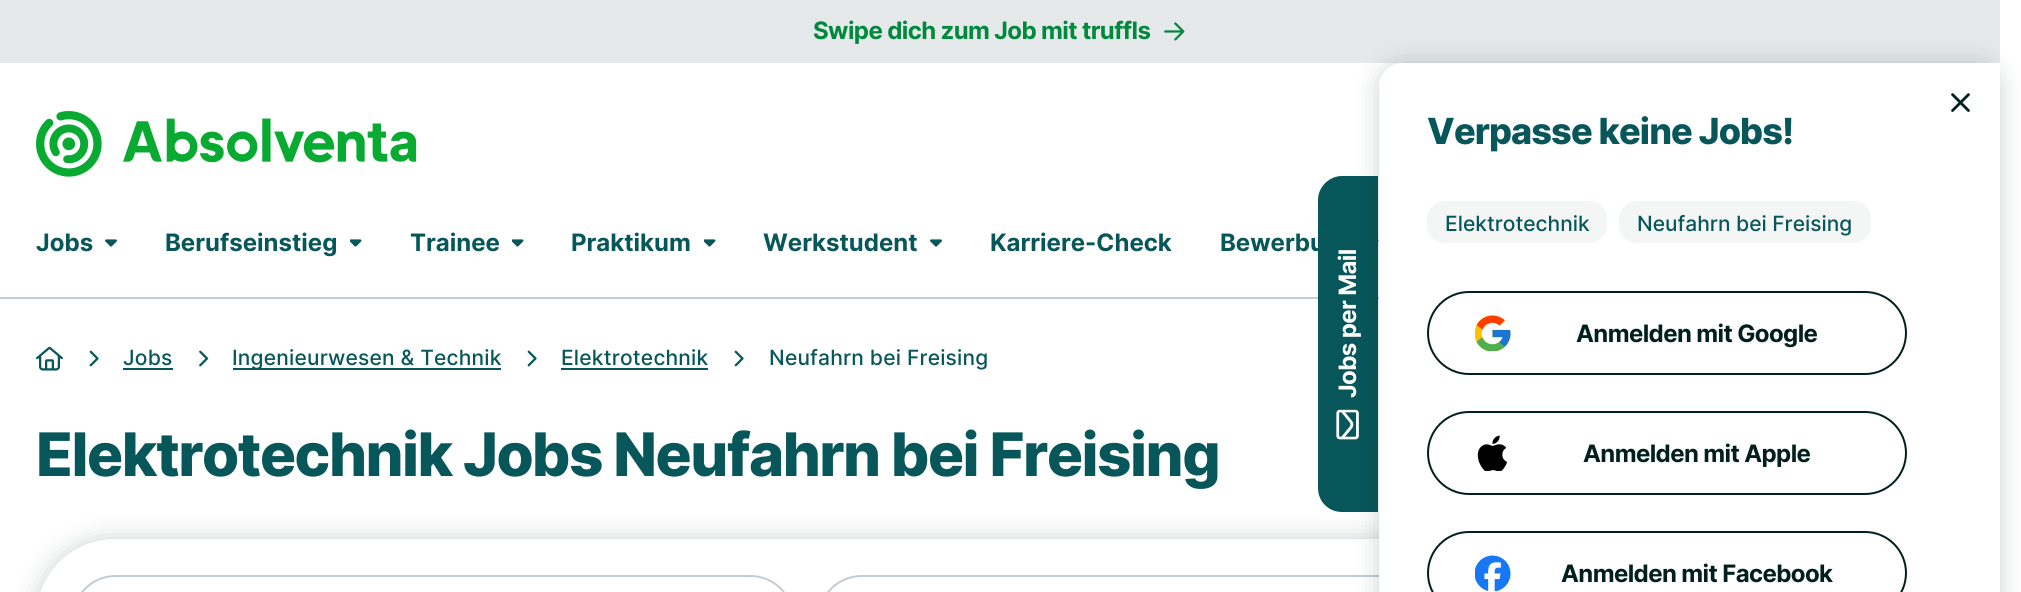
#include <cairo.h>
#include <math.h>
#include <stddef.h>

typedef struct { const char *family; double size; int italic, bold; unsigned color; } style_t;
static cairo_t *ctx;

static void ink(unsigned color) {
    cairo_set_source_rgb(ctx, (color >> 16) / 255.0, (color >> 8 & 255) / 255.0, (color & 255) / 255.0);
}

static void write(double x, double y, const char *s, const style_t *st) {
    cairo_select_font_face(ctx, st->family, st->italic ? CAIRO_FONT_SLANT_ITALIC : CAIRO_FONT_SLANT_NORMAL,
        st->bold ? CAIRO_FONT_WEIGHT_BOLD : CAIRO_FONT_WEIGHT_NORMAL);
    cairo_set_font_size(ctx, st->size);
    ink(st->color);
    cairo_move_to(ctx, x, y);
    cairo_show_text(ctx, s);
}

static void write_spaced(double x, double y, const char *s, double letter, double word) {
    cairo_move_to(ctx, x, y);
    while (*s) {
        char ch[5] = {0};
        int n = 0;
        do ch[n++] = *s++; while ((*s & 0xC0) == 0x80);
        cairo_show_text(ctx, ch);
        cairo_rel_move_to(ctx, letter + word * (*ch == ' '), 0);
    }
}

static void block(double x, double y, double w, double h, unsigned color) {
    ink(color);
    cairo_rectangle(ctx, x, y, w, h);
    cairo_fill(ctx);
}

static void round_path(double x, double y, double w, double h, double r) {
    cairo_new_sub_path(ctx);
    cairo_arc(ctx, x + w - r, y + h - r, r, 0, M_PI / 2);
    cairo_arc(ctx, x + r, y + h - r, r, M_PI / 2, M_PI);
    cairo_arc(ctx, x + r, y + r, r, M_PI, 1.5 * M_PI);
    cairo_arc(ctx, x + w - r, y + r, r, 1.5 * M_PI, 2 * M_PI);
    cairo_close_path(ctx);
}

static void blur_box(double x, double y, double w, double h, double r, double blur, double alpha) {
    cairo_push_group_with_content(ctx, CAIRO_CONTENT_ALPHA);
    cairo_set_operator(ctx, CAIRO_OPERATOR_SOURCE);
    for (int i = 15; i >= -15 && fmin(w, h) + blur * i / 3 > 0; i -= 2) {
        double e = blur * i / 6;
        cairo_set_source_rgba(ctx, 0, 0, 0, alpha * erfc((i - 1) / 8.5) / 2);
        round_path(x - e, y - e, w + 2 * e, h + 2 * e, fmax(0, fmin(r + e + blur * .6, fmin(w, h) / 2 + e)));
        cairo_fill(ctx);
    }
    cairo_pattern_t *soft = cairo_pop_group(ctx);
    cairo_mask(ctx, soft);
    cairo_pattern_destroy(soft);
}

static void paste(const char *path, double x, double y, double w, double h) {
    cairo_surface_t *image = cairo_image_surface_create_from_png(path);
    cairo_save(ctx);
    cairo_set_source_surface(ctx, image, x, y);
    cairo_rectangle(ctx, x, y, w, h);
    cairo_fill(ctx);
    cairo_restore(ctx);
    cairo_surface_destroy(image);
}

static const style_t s1 = {"Inter Medium", 21, 0, 0, 0x07575a};
static const style_t s2 = {"Inter", 24, 0, 1, 0x07575a};

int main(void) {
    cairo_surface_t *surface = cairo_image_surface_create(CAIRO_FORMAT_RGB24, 2021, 592);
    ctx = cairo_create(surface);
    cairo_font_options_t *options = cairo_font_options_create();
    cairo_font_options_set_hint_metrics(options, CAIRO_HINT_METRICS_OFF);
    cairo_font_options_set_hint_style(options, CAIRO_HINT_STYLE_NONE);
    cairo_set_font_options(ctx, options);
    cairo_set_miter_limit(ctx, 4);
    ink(0xffffff);
    cairo_paint(ctx);
    block(0, 0, 2000, 63, 0xe6e9e9);
    cairo_select_font_face(ctx, "Inter", CAIRO_FONT_SLANT_NORMAL, CAIRO_FONT_WEIGHT_BOLD);
    cairo_set_font_size(ctx, 24);
    ink(0x00893d);
    write_spaced(813, 39, "Swipe dich zum Job mit truffls", -0.6, 0);
    paste("pic1.png", 1164, 22, 21, 19);
    paste("pic2.png", 36, 111, 381, 66);
    paste("pic3.png", 36, 347, 27, 24);
    paste("pic4.png", 89, 350, 10, 17);
    cairo_select_font_face(ctx, "Inter Medium", CAIRO_FONT_SLANT_NORMAL, CAIRO_FONT_WEIGHT_NORMAL);
    cairo_set_font_size(ctx, 21);
    ink(0x07575a);
    write_spaced(123, 365, "Jobs", 0.2, 0);
    block(123, 368, 50, 2, 0x07575a);
    paste("pic5.png", 199, 350, 10, 17);
    block(233, 368, 268, 2, 0x07575a);
    write_spaced(232, 365, "Ingenieurwesen & Technik", 0.2, 0);
    paste("pic4.png", 527, 350, 10, 17);
    write_spaced(561, 365, "Elektrotechnik", 0.2, 0);
    block(561, 368, 147, 2, 0x07575a);
    paste("pic4.png", 734, 350, 10, 17);
    write_spaced(769, 365, "Neufahrn bei Freising", 0.2, 0);
    cairo_save(ctx);
    cairo_set_fill_rule(ctx, CAIRO_FILL_RULE_EVEN_ODD);
    cairo_new_path(ctx);
    cairo_move_to(ctx, 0, 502);
    cairo_line_to(ctx, 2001, 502);
    cairo_line_to(ctx, 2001, 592);
    cairo_line_to(ctx, 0, 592);
    cairo_close_path(ctx);
    cairo_move_to(ctx, 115.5, 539);
    cairo_line_to(ctx, 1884.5, 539);
    cairo_curve_to(ctx, 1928.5, 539, 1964, 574.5, 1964, 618.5);
    cairo_curve_to(ctx, 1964, 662.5, 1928.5, 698, 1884.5, 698);
    cairo_line_to(ctx, 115.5, 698);
    cairo_curve_to(ctx, 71.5, 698, 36, 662.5, 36, 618.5);
    cairo_curve_to(ctx, 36, 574.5, 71.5, 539, 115.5, 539);
    cairo_close_path(ctx);
    cairo_clip(ctx);
    ink(0x001f1d);
    blur_box(36, 539, 1928, 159, 79.5, 12, 0.2);
    cairo_restore(ctx);
    block(0, 297, 1379, 2, 0xc3ccd6);
    ink(0x07575a);
    cairo_new_path(ctx);
    cairo_move_to(ctx, 1318, 488);
    cairo_line_to(ctx, 1318, 200);
    cairo_curve_to(ctx, 1318, 187, 1329, 176, 1342, 176);
    cairo_line_to(ctx, 1378, 176);
    cairo_line_to(ctx, 1378, 512);
    cairo_line_to(ctx, 1342, 512);
    cairo_curve_to(ctx, 1329, 512, 1318, 502, 1318, 488);
    cairo_close_path(ctx);
    cairo_fill(ctx);
    cairo_select_font_face(ctx, "Inter", CAIRO_FONT_SLANT_NORMAL, CAIRO_FONT_WEIGHT_BOLD);
    cairo_set_font_size(ctx, 24);
    ink(0xffffff);
    cairo_save(ctx);
    cairo_translate(ctx, 1356, 398);
    cairo_rotate(ctx, -90 * M_PI / 180);
    write_spaced(0, 0, "Jobs per Mail", -0.6, 0);
    cairo_restore(ctx);
    paste("pic6.png", 1336, 409, 23, 31);
    cairo_set_source_rgba(ctx, 1, 1, 1, 0.6);
    round_path(36, 539, 1928, 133, 79.5);
    cairo_fill(ctx);
    round_path(819, 576, 719, 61, 42.5);
    ink(0xc3ccd6);
    cairo_stroke(ctx);
    paste("pic13.png", 1378, 239, 1, 3);
    ink(0x001f1d);
    blur_box(1379, 63, 621, 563, 24, 12, 0.2);
    ink(0xffffff);
    cairo_new_path(ctx);
    cairo_move_to(ctx, 1403, 63);
    cairo_line_to(ctx, 2000, 63);
    cairo_line_to(ctx, 2000, 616);
    cairo_line_to(ctx, 1403, 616);
    cairo_curve_to(ctx, 1389.5, 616, 1379, 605.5, 1379, 592);
    cairo_line_to(ctx, 1379, 87);
    cairo_curve_to(ctx, 1379, 73.5, 1389.5, 63, 1403, 63);
    cairo_close_path(ctx);
    cairo_fill(ctx);
    paste("pic7.png", 1951, 93, 19, 19);
    cairo_select_font_face(ctx, "Inter ExtraBold", CAIRO_FONT_SLANT_NORMAL, CAIRO_FONT_WEIGHT_NORMAL);
    cairo_set_font_size(ctx, 36);
    ink(0x07575a);
    write_spaced(1427, 144, "Verpasse keine Jobs!", -0.9, 0);
    ink(0xf4f5f5);
    round_path(1427, 201, 180, 42, 18);
    cairo_fill(ctx);
    write(1445, 231, "Elektrotechnik", &s1);
    ink(0xf4f5f5);
    round_path(1619, 201, 252, 42, 18);
    cairo_fill(ctx);
    write(1637, 231, "Neufahrn bei Freising", &s1);
    round_path(1428, 292, 478, 82, 41);
    ink(0x001f1d);
    cairo_stroke(ctx);
    paste("pic8.png", 1475, 315, 36, 36);
    cairo_select_font_face(ctx, "Inter", CAIRO_FONT_SLANT_NORMAL, CAIRO_FONT_WEIGHT_BOLD);
    cairo_set_font_size(ctx, 24);
    write_spaced(1576, 342, "Anmelden mit Google", -0.6, 0);
    round_path(1428, 412, 478, 82, 41);
    cairo_stroke(ctx);
    paste("pic9.png", 1477, 435, 31, 36);
    write_spaced(1583, 462, "Anmelden mit Apple", -0.6, 0);
    round_path(1428, 532, 478, 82, 41);
    cairo_stroke(ctx);
    paste("pic10.png", 1475, 555, 36, 36);
    write_spaced(1561, 582, "Anmelden mit Facebook", -0.6, 0);
    cairo_select_font_face(ctx, "Inter ExtraBold", CAIRO_FONT_SLANT_NORMAL, CAIRO_FONT_WEIGHT_NORMAL);
    cairo_set_font_size(ctx, 60);
    ink(0x07575a);
    write_spaced(36, 476, "Elektrotechnik Jobs Neufahrn bei Freising", -1.5, 0);
    round_path(73, 576, 720, 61, 42.5);
    ink(0xc3ccd6);
    cairo_stroke(ctx);
    write(36, 251, "Jobs", &s2);
    paste("pic11.png", 105, 239, 12, 8);
    write(165, 251, "Berufseinstieg", &s2);
    paste("pic12.png", 350, 239, 12, 8);
    write(410, 251, "Trainee", &s2);
    paste("pic12.png", 512, 239, 12, 8);
    write(571, 251, "Praktikum", &s2);
    paste("pic12.png", 704, 239, 12, 8);
    write(763, 251, "Werkstudent", &s2);
    paste("pic11.png", 930, 239, 12, 8);
    write(990, 251, "Karriere-Check", &s2);
    write(1220, 251, "Bewerbu", &s2);
    cairo_surface_write_to_png(surface, "screenshot.png");
    cairo_font_options_destroy(options);
    cairo_destroy(ctx);
    cairo_surface_destroy(surface);
    return 0;
}
